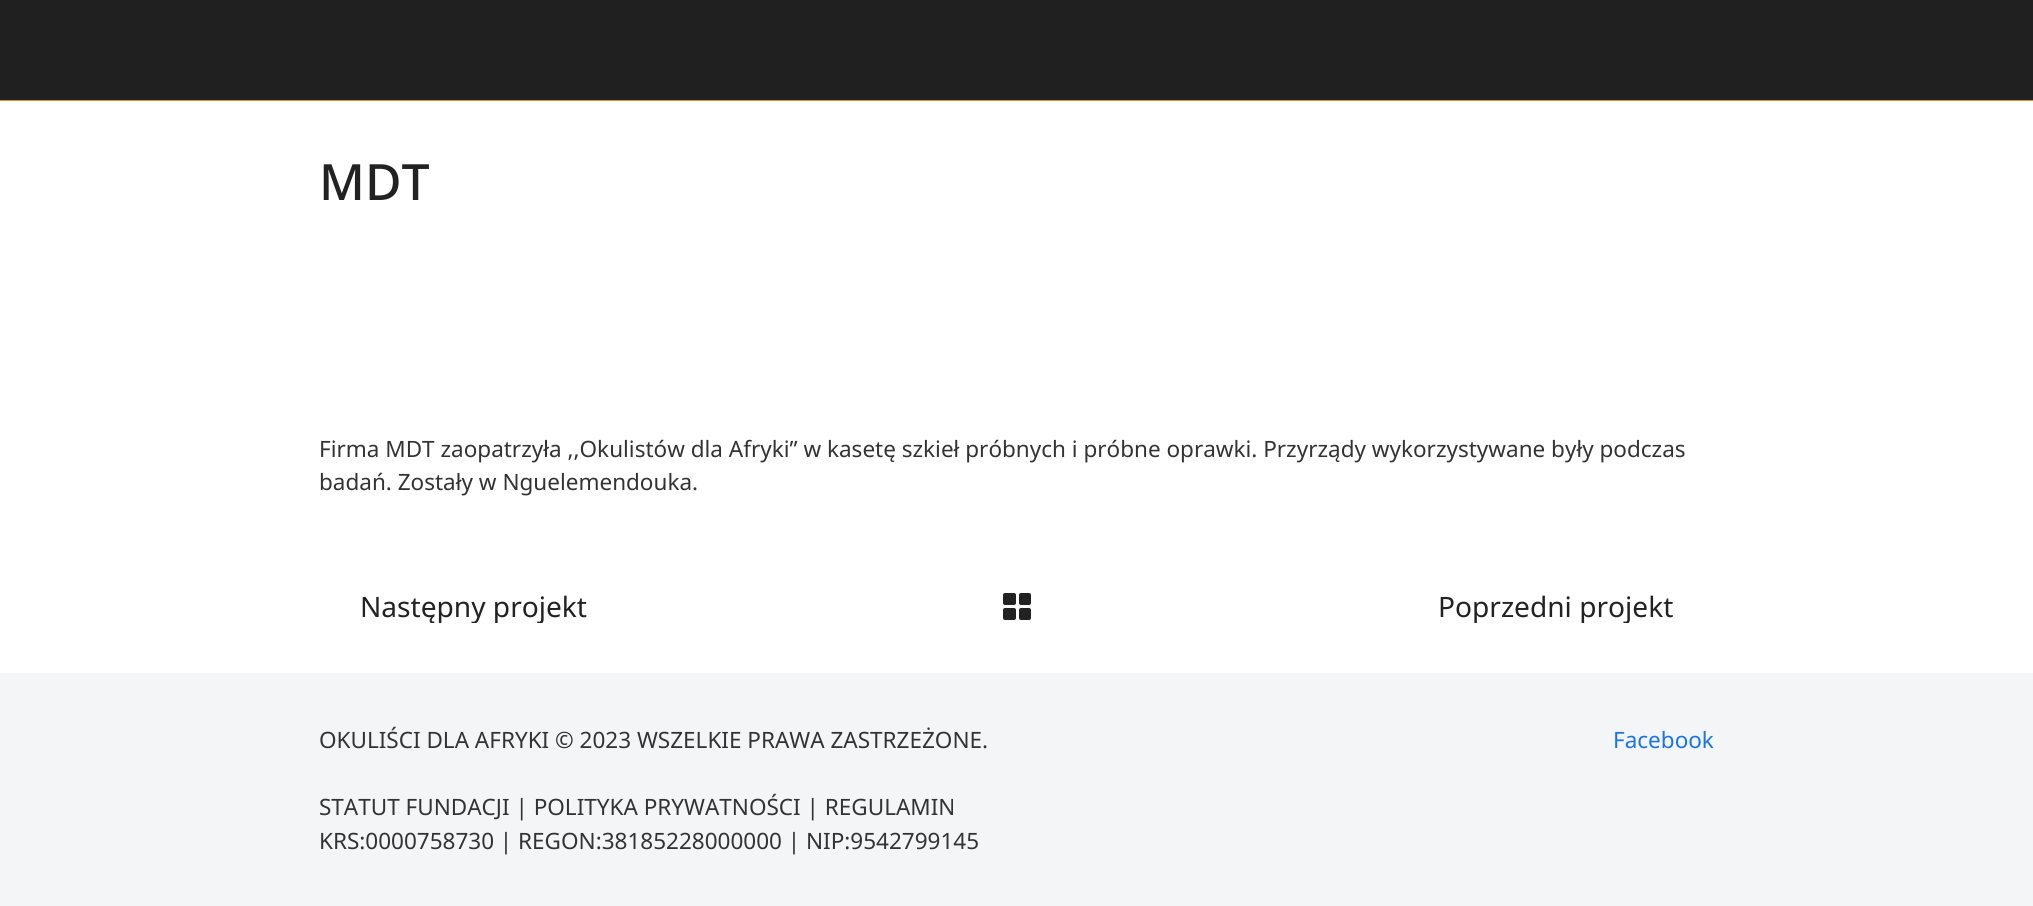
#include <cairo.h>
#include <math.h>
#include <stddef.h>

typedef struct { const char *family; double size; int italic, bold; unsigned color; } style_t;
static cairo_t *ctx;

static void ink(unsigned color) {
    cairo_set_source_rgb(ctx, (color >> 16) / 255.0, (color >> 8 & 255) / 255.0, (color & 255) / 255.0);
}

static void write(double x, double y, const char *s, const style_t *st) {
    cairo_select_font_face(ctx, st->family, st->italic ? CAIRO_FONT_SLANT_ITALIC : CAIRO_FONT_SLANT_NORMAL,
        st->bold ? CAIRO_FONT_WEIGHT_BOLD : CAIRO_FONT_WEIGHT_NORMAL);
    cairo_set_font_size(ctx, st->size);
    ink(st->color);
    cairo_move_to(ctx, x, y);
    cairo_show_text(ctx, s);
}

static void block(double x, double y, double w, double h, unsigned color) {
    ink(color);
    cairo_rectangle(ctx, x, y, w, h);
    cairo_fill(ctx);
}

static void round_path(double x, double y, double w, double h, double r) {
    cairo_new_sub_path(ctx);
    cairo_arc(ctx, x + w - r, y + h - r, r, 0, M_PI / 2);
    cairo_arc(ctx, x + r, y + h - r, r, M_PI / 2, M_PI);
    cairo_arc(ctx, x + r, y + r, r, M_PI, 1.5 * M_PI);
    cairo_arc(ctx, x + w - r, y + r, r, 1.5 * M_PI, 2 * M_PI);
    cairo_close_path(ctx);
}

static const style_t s1 = {"Noto Sans Medium", 50, 0, 0, 0x222222};
static const style_t s2 = {"Noto Sans", 22.5, 0, 0, 0x333333};
static const style_t s3 = {"Noto Sans", 28.1, 0, 0, 0x222222};
static const style_t s4 = {"Noto Sans", 22.5, 0, 0, 0x1a73e8};

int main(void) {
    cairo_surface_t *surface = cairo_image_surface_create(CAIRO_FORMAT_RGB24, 2033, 906);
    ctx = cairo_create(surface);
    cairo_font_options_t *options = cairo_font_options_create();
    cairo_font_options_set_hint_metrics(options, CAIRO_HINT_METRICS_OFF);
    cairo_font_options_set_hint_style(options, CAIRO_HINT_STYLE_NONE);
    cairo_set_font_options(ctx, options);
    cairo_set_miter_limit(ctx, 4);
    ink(0xffffff);
    cairo_paint(ctx);
    block(0, 0, 2033, 100, 0x202020);
    block(0, 100, 2033, 1, 0xdd9933);
    write(319, 200, "MDT", &s1);
    write(319, 457, "Firma MDT zaopatrzyła ,,Okulistów dla Afryki” w kasetę szkieł próbnych i próbne oprawki. Przyrządy wykorzystywane były podczas", &s2);
    write(319, 490, "badań. Zostały w Nguelemendouka.", &s2);
    cairo_save(ctx);
    cairo_rectangle(ctx, 360, 589, 228, 34);
    cairo_clip(ctx);
    write(360, 617, "Następny projekt", &s3);
    cairo_restore(ctx);
    ink(0x222222);
    round_path(1003, 593, 13, 12, 2);
    cairo_fill(ctx);
    round_path(1019, 593, 12, 12, 2);
    cairo_fill(ctx);
    round_path(1003, 608, 13, 12, 2);
    cairo_fill(ctx);
    round_path(1019, 608, 12, 12, 2);
    cairo_fill(ctx);
    cairo_save(ctx);
    cairo_rectangle(ctx, 1439, 589, 235, 34);
    cairo_clip(ctx);
    write(1438, 617, "Poprzedni projekt", &s3);
    cairo_restore(ctx);
    block(0, 673, 2033, 233, 0xf3f5f7);
    write(319, 748, "OKULIŚCI DLA AFRYKI © 2023 WSZELKIE PRAWA ZASTRZEŻONE.", &s2);
    write(319, 815, "STATUT FUNDACJI | POLITYKA PRYWATNOŚCI | REGULAMIN", &s2);
    write(319, 849, "KRS:0000758730 | REGON:38185228000000 | NIP:9542799145", &s2);
    write(1613, 748, "Facebook", &s4);
    cairo_surface_write_to_png(surface, "screenshot.png");
    cairo_font_options_destroy(options);
    cairo_destroy(ctx);
    cairo_surface_destroy(surface);
    return 0;
}
